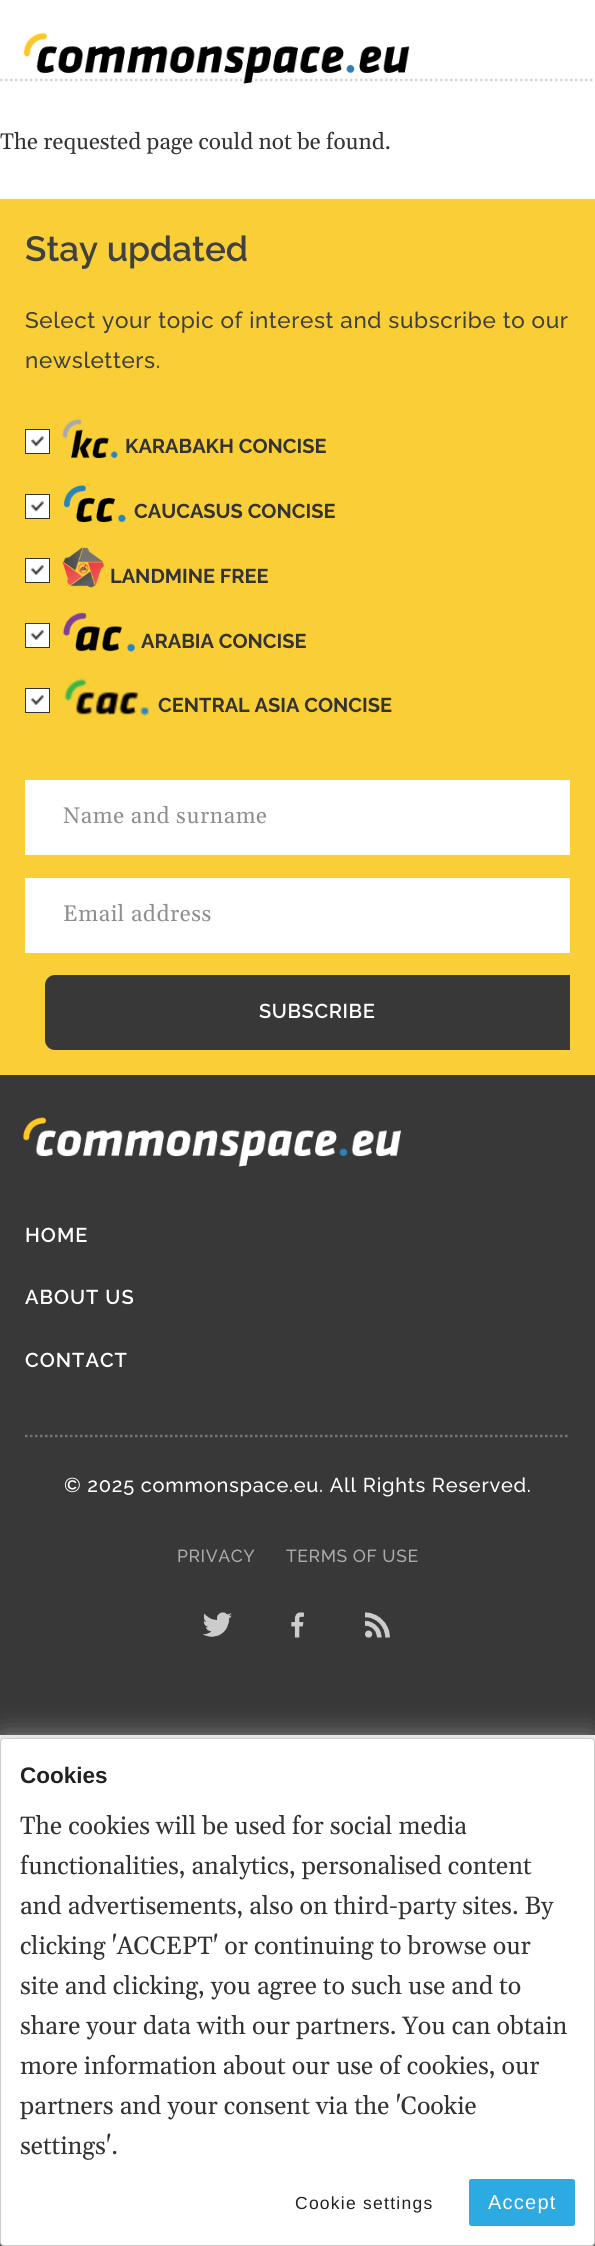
#include <cairo.h>
#include <math.h>
#include <stddef.h>

typedef struct { const char *family; double size; int italic, bold; unsigned color; } style_t;
static cairo_t *ctx;

static void ink(unsigned color) {
    cairo_set_source_rgb(ctx, (color >> 16) / 255.0, (color >> 8 & 255) / 255.0, (color & 255) / 255.0);
}

static void write(double x, double y, const char *s, const style_t *st) {
    cairo_select_font_face(ctx, st->family, st->italic ? CAIRO_FONT_SLANT_ITALIC : CAIRO_FONT_SLANT_NORMAL,
        st->bold ? CAIRO_FONT_WEIGHT_BOLD : CAIRO_FONT_WEIGHT_NORMAL);
    cairo_set_font_size(ctx, st->size);
    ink(st->color);
    cairo_move_to(ctx, x, y);
    cairo_show_text(ctx, s);
}

static void write_spaced(double x, double y, const char *s, double letter, double word) {
    cairo_move_to(ctx, x, y);
    while (*s) {
        char ch[5] = {0};
        int n = 0;
        do ch[n++] = *s++; while ((*s & 0xC0) == 0x80);
        cairo_show_text(ctx, ch);
        cairo_rel_move_to(ctx, letter + word * (*ch == ' '), 0);
    }
}

static void block(double x, double y, double w, double h, unsigned color) {
    ink(color);
    cairo_rectangle(ctx, x, y, w, h);
    cairo_fill(ctx);
}

static void round_path(double x, double y, double w, double h, double r) {
    cairo_new_sub_path(ctx);
    cairo_arc(ctx, x + w - r, y + h - r, r, 0, M_PI / 2);
    cairo_arc(ctx, x + r, y + h - r, r, M_PI / 2, M_PI);
    cairo_arc(ctx, x + r, y + r, r, M_PI, 1.5 * M_PI);
    cairo_arc(ctx, x + w - r, y + r, r, 1.5 * M_PI, 2 * M_PI);
    cairo_close_path(ctx);
}

static void blur_box(double x, double y, double w, double h, double r, double blur, double alpha) {
    cairo_push_group_with_content(ctx, CAIRO_CONTENT_ALPHA);
    cairo_set_operator(ctx, CAIRO_OPERATOR_SOURCE);
    for (int i = 15; i >= -15 && fmin(w, h) + blur * i / 3 > 0; i -= 2) {
        double e = blur * i / 6;
        cairo_set_source_rgba(ctx, 0, 0, 0, alpha * erfc((i - 1) / 8.5) / 2);
        round_path(x - e, y - e, w + 2 * e, h + 2 * e, fmax(0, fmin(r + e + blur * .6, fmin(w, h) / 2 + e)));
        cairo_fill(ctx);
    }
    cairo_pattern_t *soft = cairo_pop_group(ctx);
    cairo_mask(ctx, soft);
    cairo_pattern_destroy(soft);
}

static void paste(const char *path, double x, double y, double w, double h) {
    cairo_surface_t *image = cairo_image_surface_create_from_png(path);
    cairo_save(ctx);
    cairo_set_source_surface(ctx, image, x, y);
    cairo_rectangle(ctx, x, y, w, h);
    cairo_fill(ctx);
    cairo_restore(ctx);
    cairo_surface_destroy(image);
}

static const style_t s1 = {"Gelasio", 22.5, 0, 0, 0x333333};
static const style_t s2 = {"Raleway SemiBold", 35, 0, 0, 0x3f4040};
static const style_t s3 = {"Raleway", 20, 0, 1, 0x333333};
static const style_t s4 = {"Liberation Sans", 22.5, 0, 1, 0x212121};
static const style_t s5 = {"Gelasio", 25, 0, 0, 0x333333};

int main(void) {
    cairo_surface_t *surface = cairo_image_surface_create(CAIRO_FORMAT_RGB24, 595, 2246);
    ctx = cairo_create(surface);
    cairo_font_options_t *options = cairo_font_options_create();
    cairo_font_options_set_hint_metrics(options, CAIRO_HINT_METRICS_OFF);
    cairo_font_options_set_hint_style(options, CAIRO_HINT_STYLE_NONE);
    cairo_set_font_options(ctx, options);
    cairo_set_miter_limit(ctx, 4);
    ink(0xffffff);
    cairo_paint(ctx);
    cairo_new_path(ctx);
    cairo_move_to(ctx, 0, 80);
    cairo_line_to(ctx, 595, 80);
    ink(0xd5d5d5);
    cairo_set_line_width(ctx, 2.5);
    cairo_set_dash(ctx, (double[]){2.5, 2.5}, 2, 0);
    cairo_stroke(ctx);
    paste("pic1.png", 23, 32, 387, 52);
    block(0, 2242, 595, 4, 0x383838);
    write(0, 149, "The requested page could not be found.", &s1);
    block(0, 199, 595, 876, 0xface36);
    write(25, 261, "Stay updated", &s2);
    cairo_select_font_face(ctx, "Raleway Medium", CAIRO_FONT_SLANT_NORMAL, CAIRO_FONT_WEIGHT_NORMAL);
    cairo_set_font_size(ctx, 22.5);
    write_spaced(25, 328, "Select your topic of interest and subscribe to our", 0.6, 0);
    write_spaced(25, 368, "newsletters.", 0.6, 0);
    block(26, 430, 23, 23, 0xffffff);
    paste("pic2.png", 31, 436, 13, 11);
    cairo_rectangle(ctx, 25.5, 429.5, 24, 24);
    ink(0x333333);
    cairo_set_line_width(ctx, 1);
    cairo_set_dash(ctx, NULL, 0, 0);
    cairo_stroke(ctx);
    paste("pic3.png", 62, 419, 56, 40);
    write(125, 453, "KARABAKH CONCISE", &s3);
    block(26, 495, 23, 23, 0xffffff);
    paste("pic2.png", 31, 501, 13, 11);
    cairo_rectangle(ctx, 25.5, 494.5, 24, 24);
    ink(0x333333);
    cairo_stroke(ctx);
    paste("pic4.png", 64, 485, 62, 38);
    write(134, 518, "CAUCASUS CONCISE", &s3);
    block(26, 559, 23, 23, 0xffffff);
    paste("pic5.png", 31, 565, 13, 10);
    cairo_rectangle(ctx, 25.5, 558.5, 24, 24);
    ink(0x333333);
    cairo_stroke(ctx);
    paste("pic6.png", 62, 547, 42, 41);
    write(110, 583, "LANDMINE FREE", &s3);
    block(26, 624, 23, 23, 0xffffff);
    paste("pic5.png", 31, 630, 13, 10);
    cairo_rectangle(ctx, 25.5, 623.5, 24, 24);
    ink(0x333333);
    cairo_stroke(ctx);
    paste("pic7.png", 62, 612, 73, 40);
    write(141, 648, "ARABIA CONCISE", &s3);
    block(26, 689, 23, 23, 0xffffff);
    paste("pic5.png", 31, 695, 13, 10);
    cairo_rectangle(ctx, 25.5, 688.5, 24, 24);
    ink(0x333333);
    cairo_stroke(ctx);
    paste("pic8.png", 64, 678, 85, 38);
    write(158, 712, "CENTRAL ASIA CONCISE", &s3);
    block(25, 780, 545, 75, 0xffffff);
    cairo_select_font_face(ctx, "Gelasio", CAIRO_FONT_SLANT_NORMAL, CAIRO_FONT_WEIGHT_NORMAL);
    cairo_set_font_size(ctx, 22.5);
    ink(0x8f8f8f);
    write_spaced(63, 823, "Name and surname", 0.6, 0);
    block(25, 878, 545, 75, 0xffffff);
    ink(0x8f8f8f);
    write_spaced(63, 921, "Email address", 0.6, 0);
    ink(0x383838);
    cairo_new_path(ctx);
    cairo_move_to(ctx, 55, 975);
    cairo_line_to(ctx, 570, 975);
    cairo_line_to(ctx, 570, 1050);
    cairo_line_to(ctx, 55, 1050);
    cairo_curve_to(ctx, 49.5, 1050, 45, 1045.5, 45, 1040);
    cairo_line_to(ctx, 45, 985);
    cairo_curve_to(ctx, 45, 979.5, 49.5, 975, 55, 975);
    cairo_close_path(ctx);
    cairo_fill(ctx);
    cairo_select_font_face(ctx, "Raleway SemiBold", CAIRO_FONT_SLANT_NORMAL, CAIRO_FONT_WEIGHT_NORMAL);
    cairo_set_font_size(ctx, 20);
    ink(0xffffff);
    write_spaced(259, 1018, "SUBSCRIBE", 0.6, 0);
    block(0, 1075, 595, 660, 0x383838);
    paste("pic9.png", 23, 1117, 378, 50);
    ink(0xffffff);
    write_spaced(25, 1242, "HOME", 1, 0);
    write_spaced(25, 1304, "ABOUT US", 1, 0);
    write_spaced(25, 1367, "CONTACT", 1, 0);
    cairo_new_path(ctx);
    cairo_move_to(ctx, 25, 1436);
    cairo_line_to(ctx, 570, 1436);
    ink(0x747575);
    cairo_set_line_width(ctx, 2.5);
    cairo_set_dash(ctx, (double[]){2.5, 2.5}, 2, 0);
    cairo_stroke(ctx);
    cairo_select_font_face(ctx, "Raleway Medium", CAIRO_FONT_SLANT_NORMAL, CAIRO_FONT_WEIGHT_NORMAL);
    ink(0xffffff);
    write_spaced(64, 1492, "© 2025 commonspace.eu. All Rights Reserved.", 0.75, 0);
    cairo_set_font_size(ctx, 17.5);
    ink(0xaaaaaa);
    write_spaced(177, 1562, "PRIVACY", 0.6, 0);
    write_spaced(286, 1562, "TERMS OF USE", 0.6, 0);
    paste("pic10.png", 203, 1612, 29, 25);
    paste("pic11.png", 291, 1612, 13, 26);
    paste("pic12.png", 365, 1612, 25, 26);
    ink(0xaeaeae);
    blur_box(0, 1740, 595, 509, 4, 15, 0.86);
    ink(0xffffff);
    round_path(0.5, 1738.5, 594, 507, 3.5);
    cairo_fill_preserve(ctx);
    ink(0xcccccc);
    cairo_set_line_width(ctx, 1);
    cairo_set_dash(ctx, NULL, 0, 0);
    cairo_stroke(ctx);
    write(20, 1783, "Cookies", &s4);
    write(20, 1834, "The cookies will be used for social media", &s5);
    write(20, 1874, "functionalities, analytics, personalised content", &s5);
    write(20, 1914, "and advertisements, also on third-party sites. By", &s5);
    write(20, 1954, "clicking 'ACCEPT' or continuing to browse our", &s5);
    write(20, 1994, "site and clicking, you agree to such use and to", &s5);
    write(20, 2034, "share your data with our partners. You can obtain", &s5);
    write(20, 2074, "more information about our use of cookies, our", &s5);
    write(20, 2114, "partners and your consent via the 'Cookie", &s5);
    write(20, 2154, "settings'.", &s5);
    cairo_select_font_face(ctx, "Liberation Sans", CAIRO_FONT_SLANT_NORMAL, CAIRO_FONT_WEIGHT_NORMAL);
    cairo_set_font_size(ctx, 17.5);
    ink(0x212121);
    write_spaced(295, 2209, "Cookie settings", 1.25, 0);
    ink(0x2daae1);
    round_path(469, 2179, 106, 47, 2.5);
    cairo_fill(ctx);
    cairo_set_font_size(ctx, 20);
    ink(0xffffff);
    write_spaced(488, 2209, "Accept", 1.25, 0);
    cairo_surface_write_to_png(surface, "screenshot.png");
    cairo_font_options_destroy(options);
    cairo_destroy(ctx);
    cairo_surface_destroy(surface);
    return 0;
}
